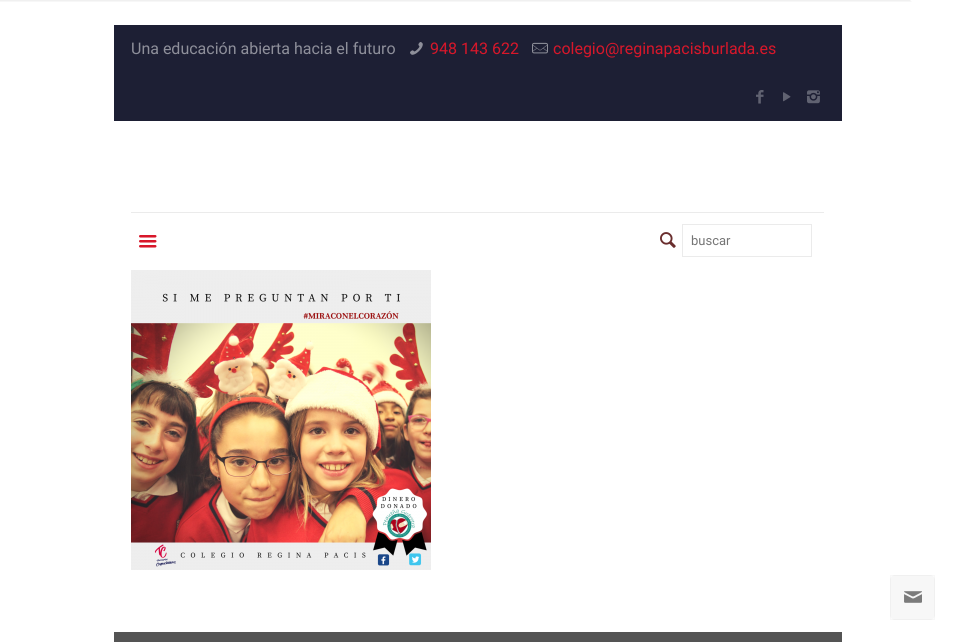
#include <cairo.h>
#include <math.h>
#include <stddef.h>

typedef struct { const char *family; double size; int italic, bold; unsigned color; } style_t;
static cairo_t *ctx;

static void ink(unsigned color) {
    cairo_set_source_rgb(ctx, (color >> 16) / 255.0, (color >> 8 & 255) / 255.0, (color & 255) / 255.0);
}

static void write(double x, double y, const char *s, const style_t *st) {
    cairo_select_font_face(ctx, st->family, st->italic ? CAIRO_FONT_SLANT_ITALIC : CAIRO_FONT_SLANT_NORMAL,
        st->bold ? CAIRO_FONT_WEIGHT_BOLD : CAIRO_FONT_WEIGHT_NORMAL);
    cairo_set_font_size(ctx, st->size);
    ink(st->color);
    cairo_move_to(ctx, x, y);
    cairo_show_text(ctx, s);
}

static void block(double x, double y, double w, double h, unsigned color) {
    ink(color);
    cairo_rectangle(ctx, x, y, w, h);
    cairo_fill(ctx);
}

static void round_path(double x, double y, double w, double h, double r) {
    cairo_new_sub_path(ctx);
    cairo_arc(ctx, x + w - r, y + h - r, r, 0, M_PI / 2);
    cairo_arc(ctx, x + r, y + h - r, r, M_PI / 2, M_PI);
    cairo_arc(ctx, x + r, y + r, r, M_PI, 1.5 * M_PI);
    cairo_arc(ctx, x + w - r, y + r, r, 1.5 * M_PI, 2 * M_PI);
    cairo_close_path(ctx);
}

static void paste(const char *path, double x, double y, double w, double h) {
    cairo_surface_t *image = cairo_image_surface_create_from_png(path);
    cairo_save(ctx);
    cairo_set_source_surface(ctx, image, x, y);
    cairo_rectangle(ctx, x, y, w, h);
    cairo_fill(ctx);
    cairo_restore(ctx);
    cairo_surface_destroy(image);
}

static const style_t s1 = {"Roboto", 16, 0, 0, 0x8e8f9a};
static const style_t s2 = {"Roboto", 16, 0, 0, 0xd8172a};
static const style_t s3 = {"Roboto", 13, 0, 0, 0x757575};

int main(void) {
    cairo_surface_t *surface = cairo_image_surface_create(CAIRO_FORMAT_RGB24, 955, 642);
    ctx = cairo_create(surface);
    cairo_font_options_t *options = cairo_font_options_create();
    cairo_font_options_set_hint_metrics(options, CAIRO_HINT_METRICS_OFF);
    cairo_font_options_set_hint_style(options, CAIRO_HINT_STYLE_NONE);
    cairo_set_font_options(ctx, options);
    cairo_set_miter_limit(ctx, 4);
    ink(0xffffff);
    cairo_paint(ctx);
    paste("pic1.png", 0, 0, 912, 2);
    ink(0xffffff);
    cairo_new_path(ctx);
    cairo_move_to(ctx, 955, 0);
    cairo_line_to(ctx, 955, 45);
    cairo_line_to(ctx, 910, 0);
    cairo_close_path(ctx);
    cairo_fill(ctx);
    block(114, 25, 728, 96, 0x1d1f34);
    write(131, 54, "Una educación abierta hacia el futuro", &s1);
    paste("pic2.png", 410, 42, 13, 13);
    write(430, 54, "948 143 622", &s2);
    paste("pic3.png", 532, 42, 16, 12);
    write(553, 54, "colegio@reginapacisburlada.es", &s2);
    paste("pic4.png", 756, 90, 8, 14);
    paste("pic5.png", 783, 92, 8, 10);
    paste("pic6.png", 807, 90, 13, 14);
    block(131, 212, 693, 1, 0xebebeb);
    paste("pic7.png", 139, 235, 18, 13);
    paste("pic8.png", 660, 232, 16, 16);
    cairo_rectangle(ctx, 682.5, 224.5, 129, 32);
    cairo_set_line_width(ctx, 1);
    cairo_stroke(ctx);
    write(691, 245, "buscar", &s3);
    paste("pic9.png", 131, 270, 300, 300);
    block(114, 632, 728, 10, 0x545454);
    ink(0xf7f7f7);
    round_path(890, 575, 45, 45, 5);
    cairo_fill(ctx);
    cairo_rectangle(ctx, 890.5, 575.5, 44, 44);
    cairo_set_source_rgba(ctx, 0, 0, 0, 0.03);
    cairo_stroke(ctx);
    paste("pic10.png", 904, 591, 18, 12);
    cairo_surface_write_to_png(surface, "screenshot.png");
    cairo_font_options_destroy(options);
    cairo_destroy(ctx);
    cairo_surface_destroy(surface);
    return 0;
}
